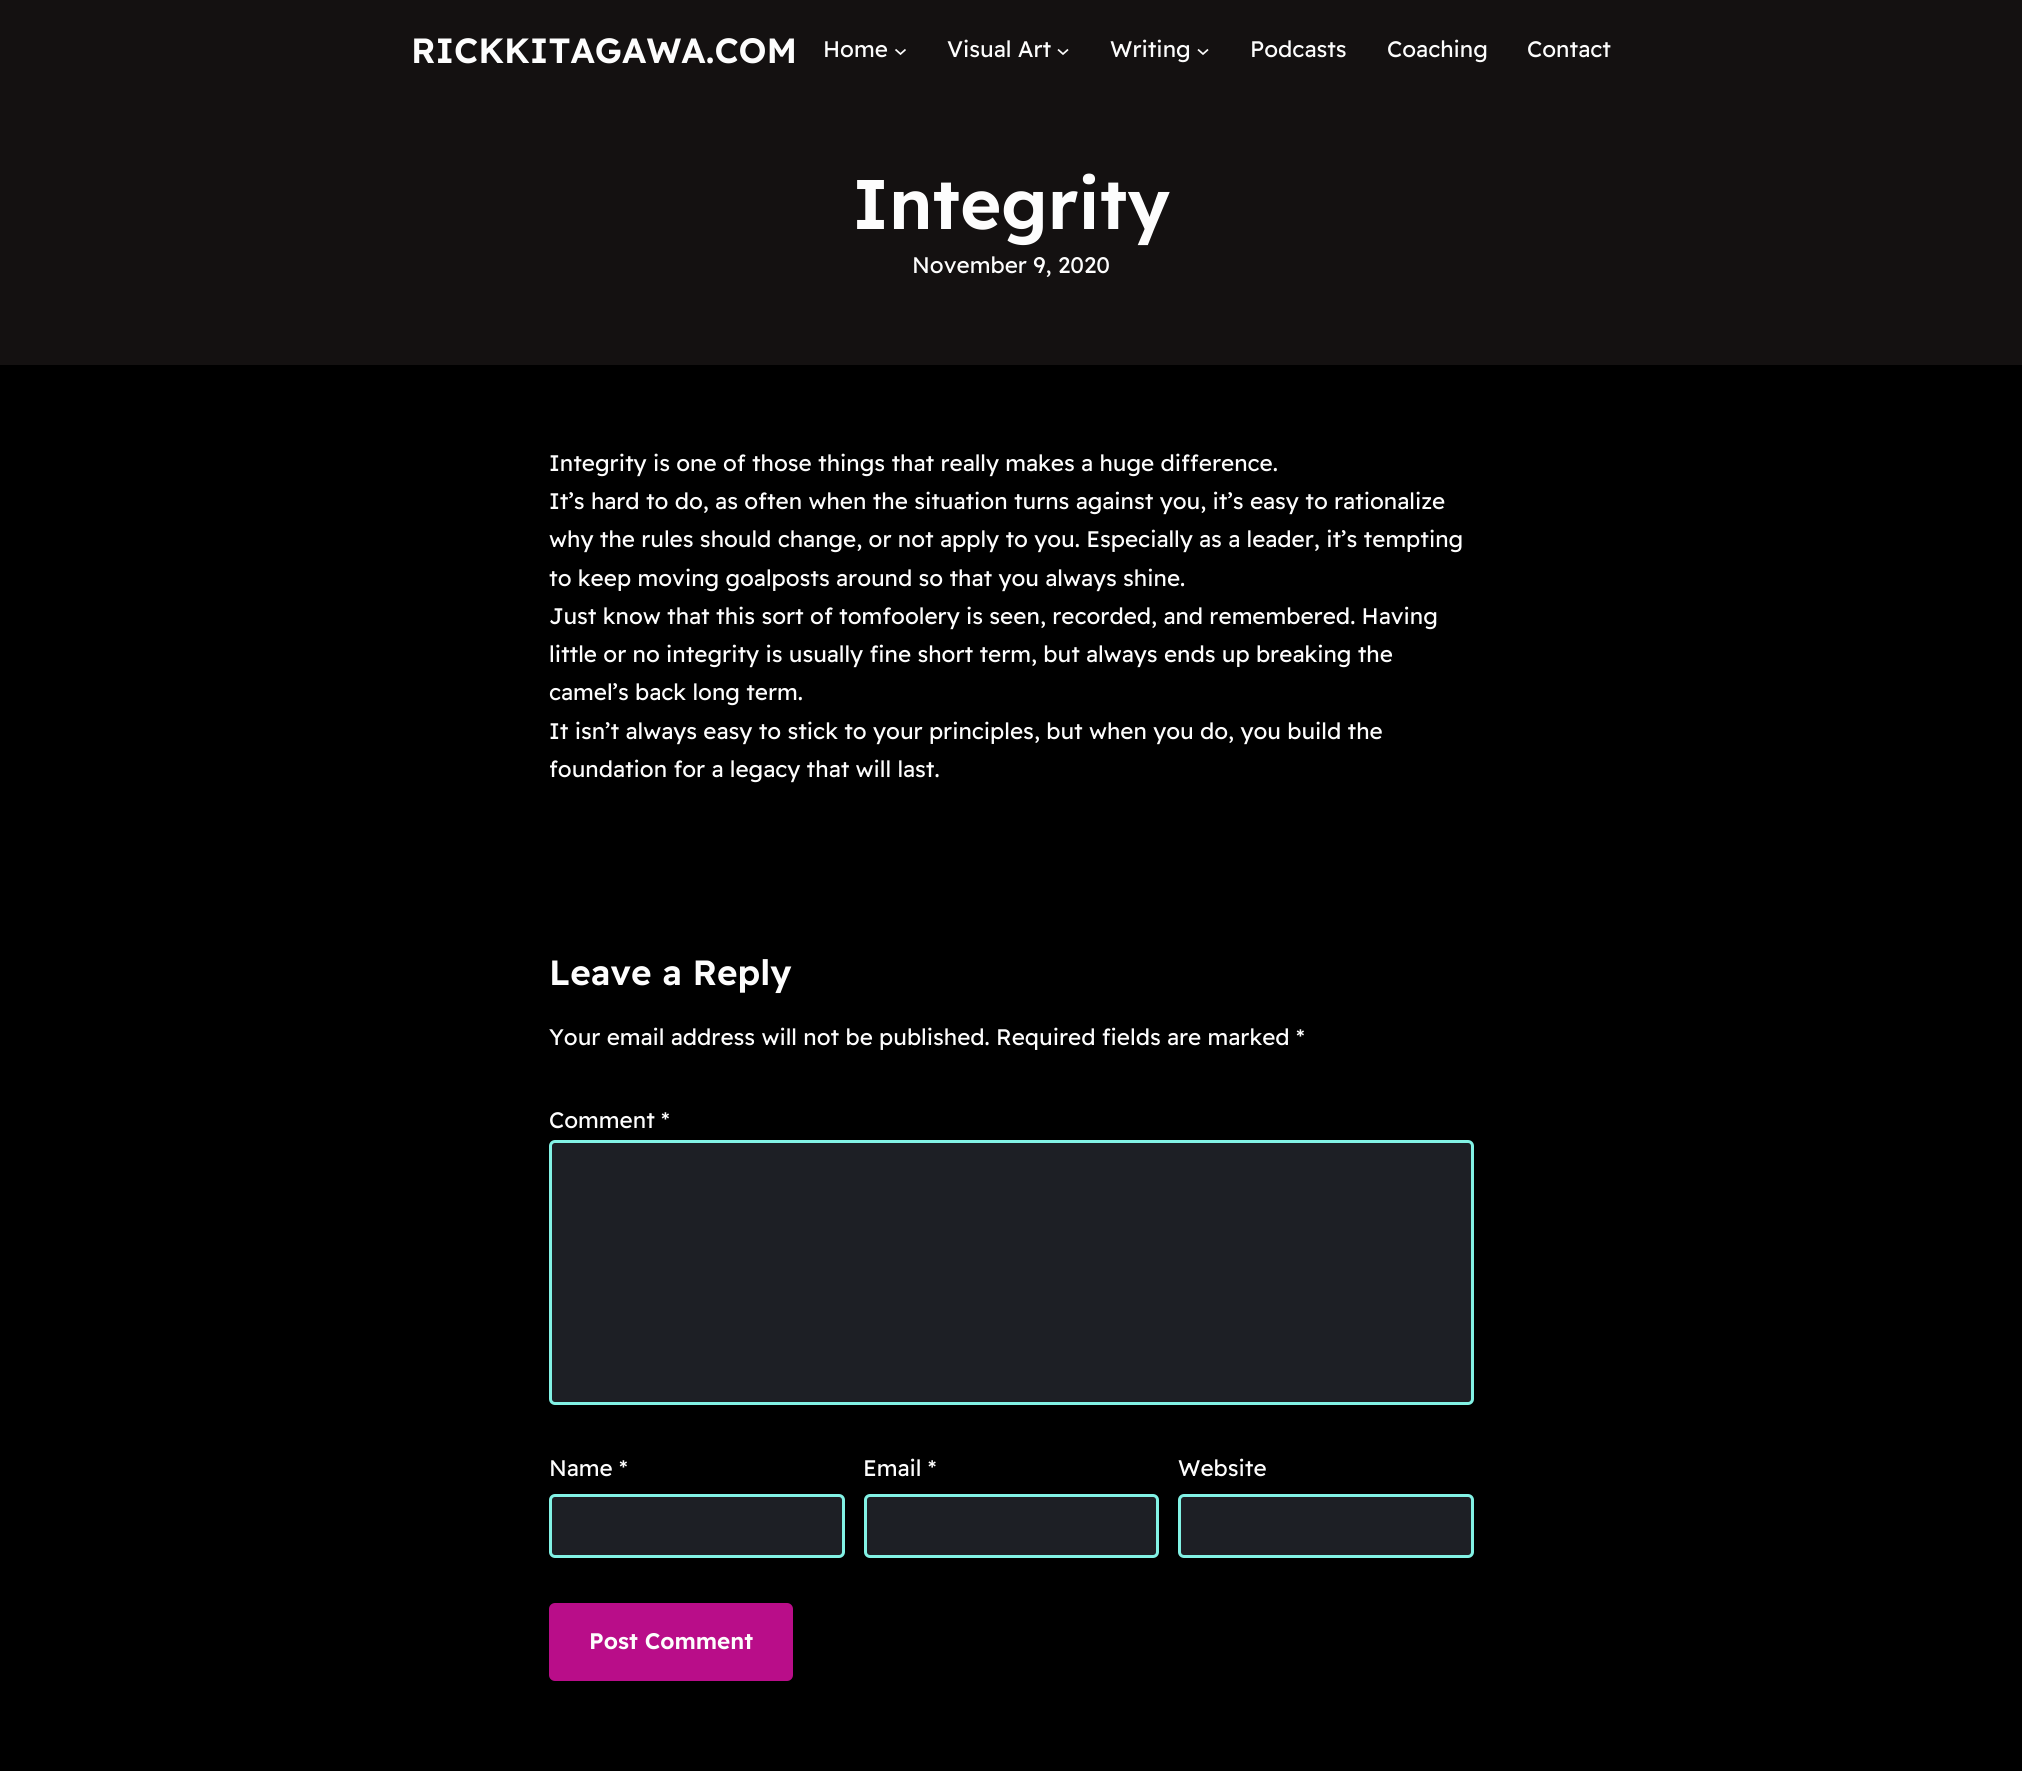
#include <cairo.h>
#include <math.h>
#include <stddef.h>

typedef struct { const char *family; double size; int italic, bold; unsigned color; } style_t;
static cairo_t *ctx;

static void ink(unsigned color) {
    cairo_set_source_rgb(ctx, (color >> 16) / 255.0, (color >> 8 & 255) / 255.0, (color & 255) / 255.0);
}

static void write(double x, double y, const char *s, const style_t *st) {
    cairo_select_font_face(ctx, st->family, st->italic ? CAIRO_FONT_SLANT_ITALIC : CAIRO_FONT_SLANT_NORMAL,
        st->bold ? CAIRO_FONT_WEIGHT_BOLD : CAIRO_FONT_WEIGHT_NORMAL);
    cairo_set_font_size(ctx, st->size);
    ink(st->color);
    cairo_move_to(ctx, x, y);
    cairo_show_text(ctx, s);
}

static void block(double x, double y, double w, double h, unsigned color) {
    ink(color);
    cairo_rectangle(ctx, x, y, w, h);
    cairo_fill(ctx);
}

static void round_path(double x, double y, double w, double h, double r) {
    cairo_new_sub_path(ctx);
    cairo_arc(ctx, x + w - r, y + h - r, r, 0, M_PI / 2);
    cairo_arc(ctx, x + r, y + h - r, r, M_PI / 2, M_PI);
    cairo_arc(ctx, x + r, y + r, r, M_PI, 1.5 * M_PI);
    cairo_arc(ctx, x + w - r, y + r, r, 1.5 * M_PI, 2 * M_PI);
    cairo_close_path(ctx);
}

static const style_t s1 = {"Readex Pro SemiBold", 35, 0, 0, 0xfdfdfd};
static const style_t s2 = {"Readex Pro", 22.5, 0, 0, 0xfdfdfd};
static const style_t s3 = {"Readex Pro SemiBold", 70, 0, 0, 0xfdfdfd};
static const style_t s4 = {"Readex Pro SemiBold", 22.5, 0, 0, 0xfdfdfd};

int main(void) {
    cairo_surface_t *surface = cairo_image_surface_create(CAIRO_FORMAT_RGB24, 2022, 1771);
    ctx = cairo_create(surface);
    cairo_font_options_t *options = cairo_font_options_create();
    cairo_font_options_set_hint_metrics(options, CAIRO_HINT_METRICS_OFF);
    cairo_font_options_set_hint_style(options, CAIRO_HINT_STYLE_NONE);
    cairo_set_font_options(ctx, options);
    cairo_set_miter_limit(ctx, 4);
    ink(0x000000);
    cairo_paint(ctx);
    block(0, 0, 2022, 365, 0x141111);
    write(411, 63, "RICKKITAGAWA.COM", &s1);
    write(823, 57, "Home", &s2);
    cairo_new_path(ctx);
    cairo_move_to(ctx, 895.5, 49.5);
    cairo_line_to(ctx, 900.5, 54);
    cairo_line_to(ctx, 905.5, 49.5);
    cairo_set_line_width(ctx, 1.7);
    cairo_stroke(ctx);
    write(947, 57, "Visual Art", &s2);
    cairo_new_path(ctx);
    cairo_move_to(ctx, 1058, 49.5);
    cairo_line_to(ctx, 1063, 54);
    cairo_line_to(ctx, 1068, 49.5);
    cairo_stroke(ctx);
    write(1110, 57, "Writing", &s2);
    cairo_new_path(ctx);
    cairo_move_to(ctx, 1198, 49.5);
    cairo_line_to(ctx, 1203, 54);
    cairo_line_to(ctx, 1208, 49.5);
    cairo_stroke(ctx);
    write(1250, 57, "Podcasts", &s2);
    write(1387, 57, "Coaching", &s2);
    write(1527, 57, "Contact", &s2);
    write(852, 229, "Integrity", &s3);
    write(912, 273, "November 9, 2020", &s2);
    write(549, 471, "Integrity is one of those things that really makes a huge difference.", &s2);
    write(549, 509, "It’s hard to do, as often when the situation turns against you, it’s easy to rationalize", &s2);
    write(549, 547, "why the rules should change, or not apply to you. Especially as a leader, it’s tempting", &s2);
    write(549, 586, "to keep moving goalposts around so that you always shine.", &s2);
    write(549, 624, "Just know that this sort of tomfoolery is seen, recorded, and remembered. Having", &s2);
    write(549, 662, "little or no integrity is usually fine short term, but always ends up breaking the", &s2);
    write(549, 700, "camel’s back long term.", &s2);
    write(549, 739, "It isn’t always easy to stick to your principles, but when you do, you build the", &s2);
    write(549, 777, "foundation for a legacy that will last.", &s2);
    write(549, 985, "Leave a Reply", &s1);
    write(549, 1045, "Your email address will not be published. Required fields are marked *", &s2);
    write(549, 1128, "Comment *", &s2);
    ink(0x1d1f25);
    round_path(550.5, 1141.5, 922, 262, 4.5);
    cairo_fill_preserve(ctx);
    ink(0x82f2e5);
    cairo_set_line_width(ctx, 3);
    cairo_stroke(ctx);
    write(549, 1476, "Name *", &s2);
    ink(0x1d1f25);
    round_path(550.5, 1495.5, 293, 61, 4.5);
    cairo_fill_preserve(ctx);
    ink(0x82f2e5);
    cairo_stroke(ctx);
    write(863, 1476, "Email *", &s2);
    ink(0x1d1f25);
    round_path(865.5, 1495.5, 292, 61, 4.5);
    cairo_fill_preserve(ctx);
    ink(0x82f2e5);
    cairo_stroke(ctx);
    write(1178, 1476, "Website", &s2);
    ink(0x1d1f25);
    round_path(1179.5, 1495.5, 293, 61, 4.5);
    cairo_fill_preserve(ctx);
    ink(0x82f2e5);
    cairo_stroke(ctx);
    ink(0xb90d89);
    round_path(549, 1603, 244, 78, 6);
    cairo_fill(ctx);
    write(589, 1649, "Post Comment", &s4);
    cairo_surface_write_to_png(surface, "screenshot.png");
    cairo_font_options_destroy(options);
    cairo_destroy(ctx);
    cairo_surface_destroy(surface);
    return 0;
}
